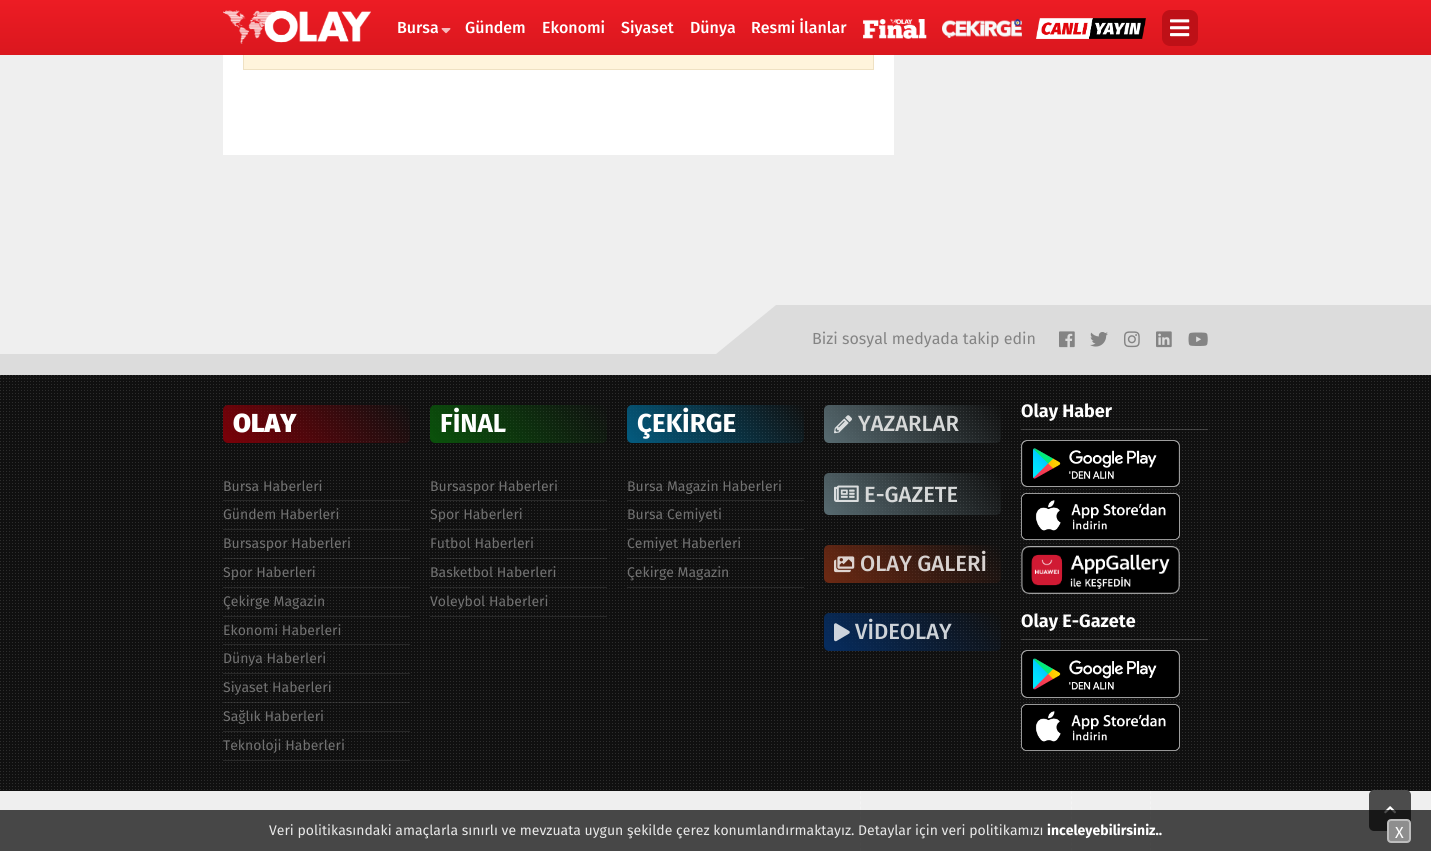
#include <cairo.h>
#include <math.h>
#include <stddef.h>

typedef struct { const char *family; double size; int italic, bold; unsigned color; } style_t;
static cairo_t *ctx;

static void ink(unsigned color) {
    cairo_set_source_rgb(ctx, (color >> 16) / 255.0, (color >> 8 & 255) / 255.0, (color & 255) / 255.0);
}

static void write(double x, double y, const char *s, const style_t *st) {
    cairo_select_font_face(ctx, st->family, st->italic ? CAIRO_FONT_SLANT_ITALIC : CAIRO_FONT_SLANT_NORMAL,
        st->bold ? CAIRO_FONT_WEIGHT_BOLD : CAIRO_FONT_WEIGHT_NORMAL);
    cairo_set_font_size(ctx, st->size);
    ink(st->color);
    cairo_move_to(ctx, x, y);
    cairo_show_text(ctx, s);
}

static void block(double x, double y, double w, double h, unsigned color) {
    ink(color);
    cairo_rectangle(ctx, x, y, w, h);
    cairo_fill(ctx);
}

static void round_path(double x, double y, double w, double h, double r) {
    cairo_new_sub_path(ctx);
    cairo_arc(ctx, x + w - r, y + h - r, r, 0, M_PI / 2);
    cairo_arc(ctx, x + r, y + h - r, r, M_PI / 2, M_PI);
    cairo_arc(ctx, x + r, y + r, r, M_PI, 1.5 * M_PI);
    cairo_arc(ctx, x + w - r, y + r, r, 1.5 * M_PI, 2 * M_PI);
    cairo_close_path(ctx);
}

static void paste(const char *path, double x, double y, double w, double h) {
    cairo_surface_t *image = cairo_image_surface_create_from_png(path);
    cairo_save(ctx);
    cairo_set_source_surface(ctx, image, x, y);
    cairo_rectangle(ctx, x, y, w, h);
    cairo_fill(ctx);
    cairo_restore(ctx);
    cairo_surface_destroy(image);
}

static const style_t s1 = {"Fira Sans Medium", 16, 0, 0, 0xffffff};
static const style_t s2 = {"Fira Sans", 16, 0, 0, 0x848484};
static const style_t s3 = {"Fira Sans Black", 26, 0, 0, 0xffffff};
static const style_t s4 = {"Fira Sans", 14, 0, 0, 0x727272};
static const style_t s5 = {"Fira Sans", 26, 0, 1, 0xffffff};
static const style_t s6 = {"Fira Sans Medium", 22, 0, 0, 0xd7d9d9};
static const style_t s7 = {"Fira Sans Medium", 22, 0, 0, 0xd8d2d0};
static const style_t s8 = {"Fira Sans Medium", 22, 0, 0, 0xced3d8};
static const style_t s9 = {"Fira Sans", 18, 0, 1, 0xffffff};
static const style_t s10 = {"Fira Sans", 14, 0, 0, 0xe8e8e8};
static const style_t s11 = {"Fira Sans", 14, 0, 1, 0xffffff};
static const style_t s12 = {"Fira Sans", 16, 0, 0, 0xffffff};

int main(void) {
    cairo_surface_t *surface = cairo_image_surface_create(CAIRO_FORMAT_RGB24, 1431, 851);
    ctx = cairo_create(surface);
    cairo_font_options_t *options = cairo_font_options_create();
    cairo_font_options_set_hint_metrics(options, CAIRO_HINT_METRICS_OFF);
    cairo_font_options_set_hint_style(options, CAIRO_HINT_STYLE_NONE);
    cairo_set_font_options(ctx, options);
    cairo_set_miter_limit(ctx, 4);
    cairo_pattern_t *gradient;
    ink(0xefefef);
    cairo_paint(ctx);
    block(223, 55, 671, 100, 0xffffff);
    block(244, 55, 629, 14, 0xfff4dc);
    cairo_rectangle(ctx, 243.5, 17.5, 630, 52);
    ink(0xefe1c3);
    cairo_set_line_width(ctx, 1);
    cairo_stroke(ctx);
    gradient = cairo_pattern_create_linear(716, 55, 716, 0);
    cairo_pattern_add_color_stop_rgba(gradient, 0, 0.855, 0.09, 0.118, 1);
    cairo_pattern_add_color_stop_rgba(gradient, 1, 0.929, 0.11, 0.141, 1);
    cairo_set_source(ctx, gradient);
    cairo_pattern_destroy(gradient);
    cairo_rectangle(ctx, 0, 0, 1431, 55);
    cairo_fill(ctx);
    paste("pic1.png", 223, 10, 148, 34);
    write(397, 33, "Bursa", &s1);
    paste("pic2.png", 441, 28, 10, 6);
    write(465, 33, "Gündem", &s1);
    write(542, 33, "Ekonomi", &s1);
    write(621, 33, "Siyaset", &s1);
    write(690, 33, "Dünya", &s1);
    write(751, 33, "Resmi İlanlar", &s1);
    paste("pic3.png", 863, 19, 64, 20);
    paste("pic4.png", 942, 19, 80, 19);
    paste("pic5.png", 1036, 18, 110, 21);
    ink(0xbe1017);
    round_path(1162, 10, 36, 36, 8);
    cairo_fill(ctx);
    paste("pic6.png", 1170, 19, 20, 18);
    block(0, 305, 1431, 70, 0xdcdcdc);
    block(0, 305, 716, 49, 0xefefef);
    cairo_new_path(ctx);
    cairo_move_to(ctx, 716, 305);
    cairo_line_to(ctx, 776, 305);
    cairo_line_to(ctx, 716, 354);
    cairo_close_path(ctx);
    cairo_fill(ctx);
    write(812, 344, "Bizi sosyal medyada takip edin", &s2);
    paste("pic7.png", 1059, 331, 16, 17);
    paste("pic8.png", 1090, 332, 18, 15);
    paste("pic9.png", 1124, 331, 16, 17);
    paste("pic10.png", 1156, 331, 16, 17);
    paste("pic11.png", 1188, 332, 20, 14);
    block(0, 375, 1431, 416, 0x101010);
    paste("pic12.png", 0, 375, 1429, 415);
    gradient = cairo_pattern_create_linear(252, 478, 381, 370);
    cairo_pattern_add_color_stop_rgba(gradient, 0, 0.482, 0, 0.031, 1);
    cairo_pattern_add_color_stop_rgba(gradient, 1, 0.482, 0, 0.031, 0);
    cairo_set_source(ctx, gradient);
    cairo_pattern_destroy(gradient);
    round_path(223, 405, 187, 38, 5);
    cairo_fill(ctx);
    write(233, 432, "OLAY", &s3);
    block(223, 500, 187, 1, 0x282828);
    write(223, 491, "Bursa Haberleri", &s4);
    block(223, 529, 187, 1, 0x282828);
    write(223, 519, "Gündem Haberleri", &s4);
    cairo_set_source_rgba(ctx, 1, 1, 1, 0.1);
    cairo_rectangle(ctx, 223, 558, 187, 1);
    cairo_fill(ctx);
    write(223, 548, "Bursaspor Haberleri", &s4);
    block(223, 587, 187, 1, 0x282828);
    write(223, 577, "Spor Haberleri", &s4);
    block(223, 616, 187, 1, 0x282828);
    write(223, 606, "Çekirge Magazin", &s4);
    block(223, 644, 187, 1, 0x282828);
    write(223, 635, "Ekonomi Haberleri", &s4);
    block(223, 673, 187, 1, 0x282828);
    write(223, 663, "Dünya Haberleri", &s4);
    cairo_set_source_rgba(ctx, 1, 1, 1, 0.1);
    cairo_rectangle(ctx, 223, 702, 187, 1);
    cairo_fill(ctx);
    write(223, 692, "Siyaset Haberleri", &s4);
    block(223, 731, 187, 1, 0x282828);
    write(223, 721, "Sağlık Haberleri", &s4);
    block(223, 760, 187, 1, 0x282828);
    write(223, 750, "Teknoloji Haberleri", &s4);
    gradient = cairo_pattern_create_linear(457, 475, 580, 373);
    cairo_pattern_add_color_stop_rgba(gradient, 0, 0.039, 0.322, 0.043, 1);
    cairo_pattern_add_color_stop_rgba(gradient, 1, 0.039, 0.322, 0.043, 0);
    cairo_set_source(ctx, gradient);
    cairo_pattern_destroy(gradient);
    round_path(430, 405, 177, 38, 5);
    cairo_fill(ctx);
    write(440, 432, "FİNAL", &s5);
    block(430, 500, 177, 1, 0x282828);
    write(430, 491, "Bursaspor Haberleri", &s4);
    block(430, 529, 177, 1, 0x282828);
    write(430, 519, "Spor Haberleri", &s4);
    cairo_set_source_rgba(ctx, 1, 1, 1, 0.1);
    cairo_rectangle(ctx, 430, 558, 177, 1);
    cairo_fill(ctx);
    write(430, 548, "Futbol Haberleri", &s4);
    block(430, 587, 177, 1, 0x282828);
    write(430, 577, "Basketbol Haberleri", &s4);
    block(430, 616, 177, 1, 0x282828);
    write(430, 606, "Voleybol Haberleri", &s4);
    gradient = cairo_pattern_create_linear(654, 475, 777, 373);
    cairo_pattern_add_color_stop_rgba(gradient, 0, 0.012, 0.357, 0.498, 1);
    cairo_pattern_add_color_stop_rgba(gradient, 1, 0.012, 0.357, 0.498, 0);
    cairo_set_source(ctx, gradient);
    cairo_pattern_destroy(gradient);
    round_path(627, 405, 177, 38, 5);
    cairo_fill(ctx);
    write(637, 432, "ÇEKİRGE", &s5);
    block(627, 500, 177, 1, 0x282828);
    write(627, 491, "Bursa Magazin Haberleri", &s4);
    block(627, 529, 177, 1, 0x282828);
    write(627, 519, "Bursa Cemiyeti", &s4);
    cairo_set_source_rgba(ctx, 1, 1, 1, 0.1);
    cairo_rectangle(ctx, 627, 558, 177, 1);
    cairo_fill(ctx);
    write(627, 548, "Cemiyet Haberleri", &s4);
    block(627, 587, 177, 1, 0x282828);
    write(627, 577, "Çekirge Magazin", &s4);
    gradient = cairo_pattern_create_linear(851, 475, 974, 373);
    cairo_pattern_add_color_stop_rgba(gradient, 0, 0.341, 0.416, 0.439, 1);
    cairo_pattern_add_color_stop_rgba(gradient, 1, 0.341, 0.416, 0.439, 0);
    cairo_set_source(ctx, gradient);
    cairo_pattern_destroy(gradient);
    round_path(824, 405, 177, 38, 5);
    cairo_fill(ctx);
    paste("pic13.png", 834, 415, 18, 19);
    write(858, 431, "YAZARLAR", &s6);
    gradient = cairo_pattern_create_linear(850, 546, 975, 442);
    cairo_pattern_add_color_stop_rgba(gradient, 0, 0.341, 0.416, 0.439, 1);
    cairo_pattern_add_color_stop_rgba(gradient, 1, 0.341, 0.416, 0.439, 0);
    cairo_set_source(ctx, gradient);
    cairo_pattern_destroy(gradient);
    round_path(824, 473, 177, 42, 5);
    cairo_fill(ctx);
    paste("pic14.png", 834, 485, 25, 17);
    write(864, 502, "E-GAZETE", &s6);
    gradient = cairo_pattern_create_linear(851, 615, 974, 513);
    cairo_pattern_add_color_stop_rgba(gradient, 0, 0.427, 0.161, 0.075, 1);
    cairo_pattern_add_color_stop_rgba(gradient, 1, 0.427, 0.161, 0.075, 0);
    cairo_set_source(ctx, gradient);
    cairo_pattern_destroy(gradient);
    round_path(824, 545, 177, 38, 5);
    cairo_fill(ctx);
    paste("pic15.png", 834, 556, 21, 17);
    write(860, 571, "OLAY GALERİ", &s7);
    gradient = cairo_pattern_create_linear(851, 683, 974, 581);
    cairo_pattern_add_color_stop_rgba(gradient, 0, 0.024, 0.173, 0.373, 1);
    cairo_pattern_add_color_stop_rgba(gradient, 1, 0.024, 0.173, 0.373, 0);
    cairo_set_source(ctx, gradient);
    cairo_pattern_destroy(gradient);
    round_path(824, 613, 177, 38, 5);
    cairo_fill(ctx);
    paste("pic16.png", 834, 623, 16, 19);
    write(855, 639, "VİDEOLAY", &s8);
    cairo_set_source_rgba(ctx, 0.8, 0.8, 0.8, 0.24);
    cairo_rectangle(ctx, 1021, 429, 187, 1);
    cairo_fill(ctx);
    write(1021, 417, "Olay Haber", &s9);
    paste("pic17.png", 1021, 440, 159, 47);
    paste("pic18.png", 1021, 493, 159, 47);
    paste("pic19.png", 1021, 546, 159, 48);
    cairo_set_source_rgba(ctx, 0.8, 0.8, 0.8, 0.24);
    cairo_rectangle(ctx, 1021, 639, 187, 1);
    cairo_fill(ctx);
    write(1021, 627, "Olay E-Gazete", &s9);
    paste("pic20.png", 1021, 650, 159, 48);
    paste("pic21.png", 1021, 704, 159, 47);
    cairo_new_path(ctx);
    cairo_move_to(ctx, 860.5, 791);
    cairo_line_to(ctx, 860.5, 851);
    ink(0xf4f4f4);
    cairo_set_dash(ctx, (double[]){3, 2.18}, 2, 0);
    cairo_stroke(ctx);
    cairo_new_path(ctx);
    cairo_move_to(ctx, 1071.5, 791);
    cairo_line_to(ctx, 1071.5, 851);
    cairo_stroke(ctx);
    cairo_new_path(ctx);
    cairo_move_to(ctx, 1150.5, 791);
    cairo_line_to(ctx, 1150.5, 851);
    cairo_stroke(ctx);
    ink(0x4c4c4c);
    round_path(1369, 790, 42, 41, 5);
    cairo_fill(ctx);
    paste("pic22.png", 1384, 806, 12, 8);
    cairo_set_source_rgba(ctx, 0, 0, 0, 0.7);
    cairo_rectangle(ctx, 0, 810, 1431, 41);
    cairo_fill(ctx);
    write(269, 835, "Veri politikasındaki amaçlarla sınırlı ve mevzuata uygun şekilde çerez konumlandırmaktayız. Detaylar için veri politikamızı", &s10);
    write(1047, 835, "inceleyebilirsiniz..", &s11);
    ink(0x8e8e8e);
    round_path(1388, 820, 22, 22, 3);
    cairo_fill_preserve(ctx);
    ink(0xbdbdbd);
    cairo_set_line_width(ctx, 2);
    cairo_set_dash(ctx, NULL, 0, 0);
    cairo_stroke(ctx);
    write(1395, 838, "X", &s12);
    cairo_surface_write_to_png(surface, "screenshot.png");
    cairo_font_options_destroy(options);
    cairo_destroy(ctx);
    cairo_surface_destroy(surface);
    return 0;
}
